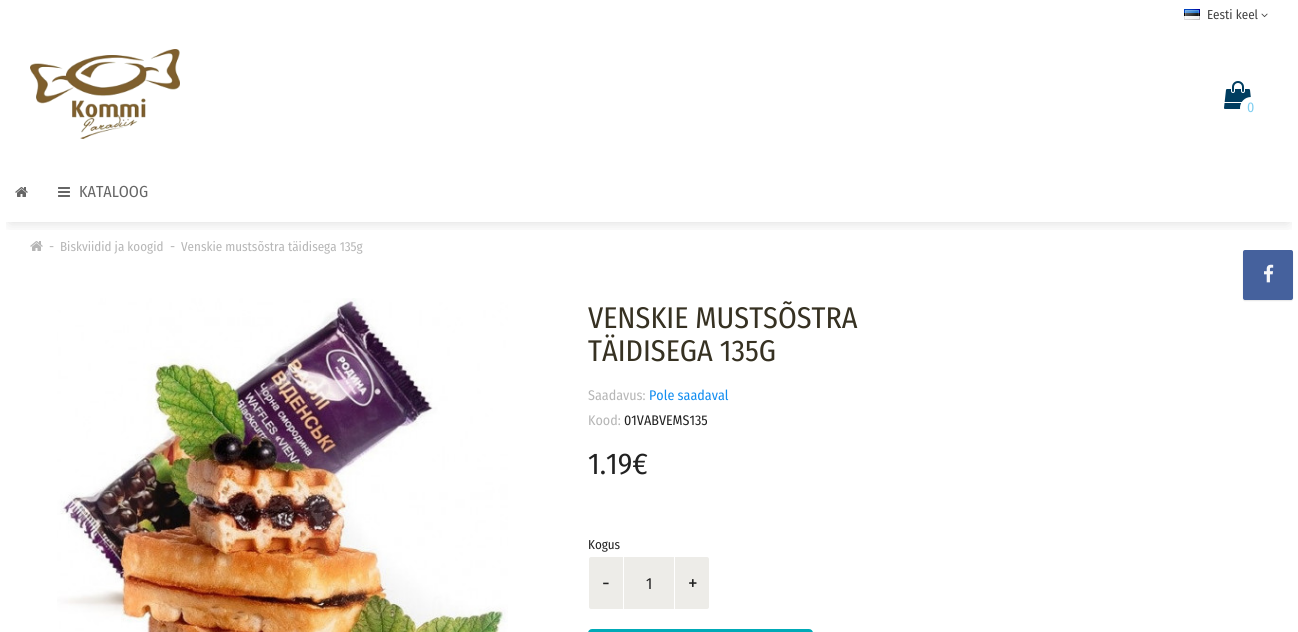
#include <cairo.h>
#include <math.h>
#include <stddef.h>

typedef struct { const char *family; double size; int italic, bold; unsigned color; } style_t;
static cairo_t *ctx;

static void ink(unsigned color) {
    cairo_set_source_rgb(ctx, (color >> 16) / 255.0, (color >> 8 & 255) / 255.0, (color & 255) / 255.0);
}

static void write(double x, double y, const char *s, const style_t *st) {
    cairo_select_font_face(ctx, st->family, st->italic ? CAIRO_FONT_SLANT_ITALIC : CAIRO_FONT_SLANT_NORMAL,
        st->bold ? CAIRO_FONT_WEIGHT_BOLD : CAIRO_FONT_WEIGHT_NORMAL);
    cairo_set_font_size(ctx, st->size);
    ink(st->color);
    cairo_move_to(ctx, x, y);
    cairo_show_text(ctx, s);
}

static void block(double x, double y, double w, double h, unsigned color) {
    ink(color);
    cairo_rectangle(ctx, x, y, w, h);
    cairo_fill(ctx);
}

static void round_path(double x, double y, double w, double h, double r) {
    cairo_new_sub_path(ctx);
    cairo_arc(ctx, x + w - r, y + h - r, r, 0, M_PI / 2);
    cairo_arc(ctx, x + r, y + h - r, r, M_PI / 2, M_PI);
    cairo_arc(ctx, x + r, y + r, r, M_PI, 1.5 * M_PI);
    cairo_arc(ctx, x + w - r, y + r, r, 1.5 * M_PI, 2 * M_PI);
    cairo_close_path(ctx);
}

static void blur_box(double x, double y, double w, double h, double r, double blur, double alpha) {
    cairo_push_group_with_content(ctx, CAIRO_CONTENT_ALPHA);
    cairo_set_operator(ctx, CAIRO_OPERATOR_SOURCE);
    for (int i = 15; i >= -15 && fmin(w, h) + blur * i / 3 > 0; i -= 2) {
        double e = blur * i / 6;
        cairo_set_source_rgba(ctx, 0, 0, 0, alpha * erfc((i - 1) / 8.5) / 2);
        round_path(x - e, y - e, w + 2 * e, h + 2 * e, fmax(0, fmin(r + e + blur * .6, fmin(w, h) / 2 + e)));
        cairo_fill(ctx);
    }
    cairo_pattern_t *soft = cairo_pop_group(ctx);
    cairo_mask(ctx, soft);
    cairo_pattern_destroy(soft);
}

static void paste(const char *path, double x, double y, double w, double h) {
    cairo_surface_t *image = cairo_image_surface_create_from_png(path);
    cairo_save(ctx);
    cairo_set_source_surface(ctx, image, x, y);
    cairo_rectangle(ctx, x, y, w, h);
    cairo_fill(ctx);
    cairo_restore(ctx);
    cairo_surface_destroy(image);
}

static const style_t s1 = {"Fira Sans Condensed", 13, 0, 0, 0x424242};
static const style_t s2 = {"Fira Sans Condensed", 14, 0, 0, 0x7fcef0};
static const style_t s3 = {"Fira Sans Condensed", 16, 0, 0, 0x666666};
static const style_t s4 = {"Fira Sans Condensed", 14, 0, 0, 0xb6b6b6};
static const style_t s5 = {"Fira Sans Condensed", 13, 0, 0, 0xb6b6b6};
static const style_t s6 = {"Fira Sans Condensed", 30, 0, 0, 0x363122};
static const style_t s7 = {"Fira Sans Condensed", 14, 0, 0, 0x118df0};
static const style_t s8 = {"Fira Sans Condensed", 14, 0, 0, 0x222222};
static const style_t s9 = {"Fira Sans Condensed", 30, 0, 0, 0x222222};
static const style_t s10 = {"Fira Sans Condensed", 13, 0, 0, 0x222222};
static const style_t s11 = {"Fira Sans Condensed", 21, 0, 0, 0x222222};
static const style_t s12 = {"Fira Sans Condensed", 16, 0, 0, 0x222222};

int main(void) {
    cairo_surface_t *surface = cairo_image_surface_create(CAIRO_FORMAT_RGB24, 1298, 632);
    ctx = cairo_create(surface);
    cairo_font_options_t *options = cairo_font_options_create();
    cairo_font_options_set_hint_metrics(options, CAIRO_HINT_METRICS_OFF);
    cairo_font_options_set_hint_style(options, CAIRO_HINT_STYLE_NONE);
    cairo_set_font_options(ctx, options);
    cairo_set_miter_limit(ctx, 4);
    ink(0xffffff);
    cairo_paint(ctx);
    paste("pic1.png", 1184, 9, 16, 11);
    write(1207, 19, "Eesti keel", &s1);
    paste("pic2.png", 1261, 13, 7, 5);
    paste("pic3.png", 30, 49, 150, 90);
    paste("pic4.png", 1224, 81, 27, 28);
    ink(0xffffff);
    cairo_arc(ctx, 1251, 108, 11, 0, 2 * M_PI);
    cairo_fill(ctx);
    write(1247, 112, "0", &s2);
    cairo_save(ctx);
    cairo_rectangle(ctx, 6, 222, 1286, 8);
    cairo_clip(ctx);
    ink(0x000000);
    blur_box(10, 182, 1278, 40, 0, 7.5, 0.15);
    cairo_restore(ctx);
    paste("pic5.png", 15, 187, 13, 10);
    paste("pic6.png", 58, 187, 12, 10);
    write(79, 197, "KATALOOG", &s3);
    paste("pic7.png", 30, 241, 13, 10);
    write(49, 251, "-", &s4);
    write(60, 251, "Biskviidid ja koogid", &s5);
    write(170, 251, "-", &s4);
    write(181, 251, "Venskie mustsõstra täidisega 135g", &s5);
    paste("pic8.png", 57, 298, 451, 334);
    write(588, 328, "VENSKIE MUSTSÕSTRA", &s6);
    write(588, 361, "TÄIDISEGA 135G", &s6);
    write(588, 400, "Saadavus:", &s4);
    write(649, 400, "Pole saadaval", &s7);
    write(588, 425, "Kood:", &s4);
    write(624, 425, "01VABVEMS135", &s8);
    write(588, 474, "1.19€", &s9);
    write(588, 549, "Kogus", &s10);
    ink(0xedece8);
    cairo_new_path(ctx);
    cairo_move_to(ctx, 591, 558);
    cairo_line_to(ctx, 622, 558);
    cairo_line_to(ctx, 622, 608);
    cairo_line_to(ctx, 591, 608);
    cairo_curve_to(ctx, 590.5, 608, 590, 607.5, 590, 607);
    cairo_line_to(ctx, 590, 559);
    cairo_curve_to(ctx, 590, 558.5, 590.5, 558, 591, 558);
    cairo_close_path(ctx);
    cairo_fill_preserve(ctx);
    cairo_stroke(ctx);
    write(602, 590, "-", &s11);
    block(624, 557, 50, 52, 0xedece8);
    write(646, 589, "1", &s12);
    ink(0xedece8);
    cairo_new_path(ctx);
    cairo_move_to(ctx, 676, 558);
    cairo_line_to(ctx, 707, 558);
    cairo_curve_to(ctx, 707.5, 558, 708, 558.5, 708, 559);
    cairo_line_to(ctx, 708, 607);
    cairo_curve_to(ctx, 708, 607.5, 707.5, 608, 707, 608);
    cairo_line_to(ctx, 676, 608);
    cairo_close_path(ctx);
    cairo_fill_preserve(ctx);
    cairo_stroke(ctx);
    write(688, 590, "+", &s11);
    ink(0x00aab7);
    round_path(589, 630, 223, 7, 3);
    cairo_fill_preserve(ctx);
    cairo_stroke(ctx);
    ink(0x0d0d0d);
    blur_box(1243, 251, 50, 50, 2, 0.5, 0.1);
    ink(0x45619d);
    round_path(1243, 250, 50, 50, 2);
    cairo_fill(ctx);
    paste("pic9.png", 1264, 264, 10, 19);
    cairo_surface_write_to_png(surface, "screenshot.png");
    cairo_font_options_destroy(options);
    cairo_destroy(ctx);
    cairo_surface_destroy(surface);
    return 0;
}
